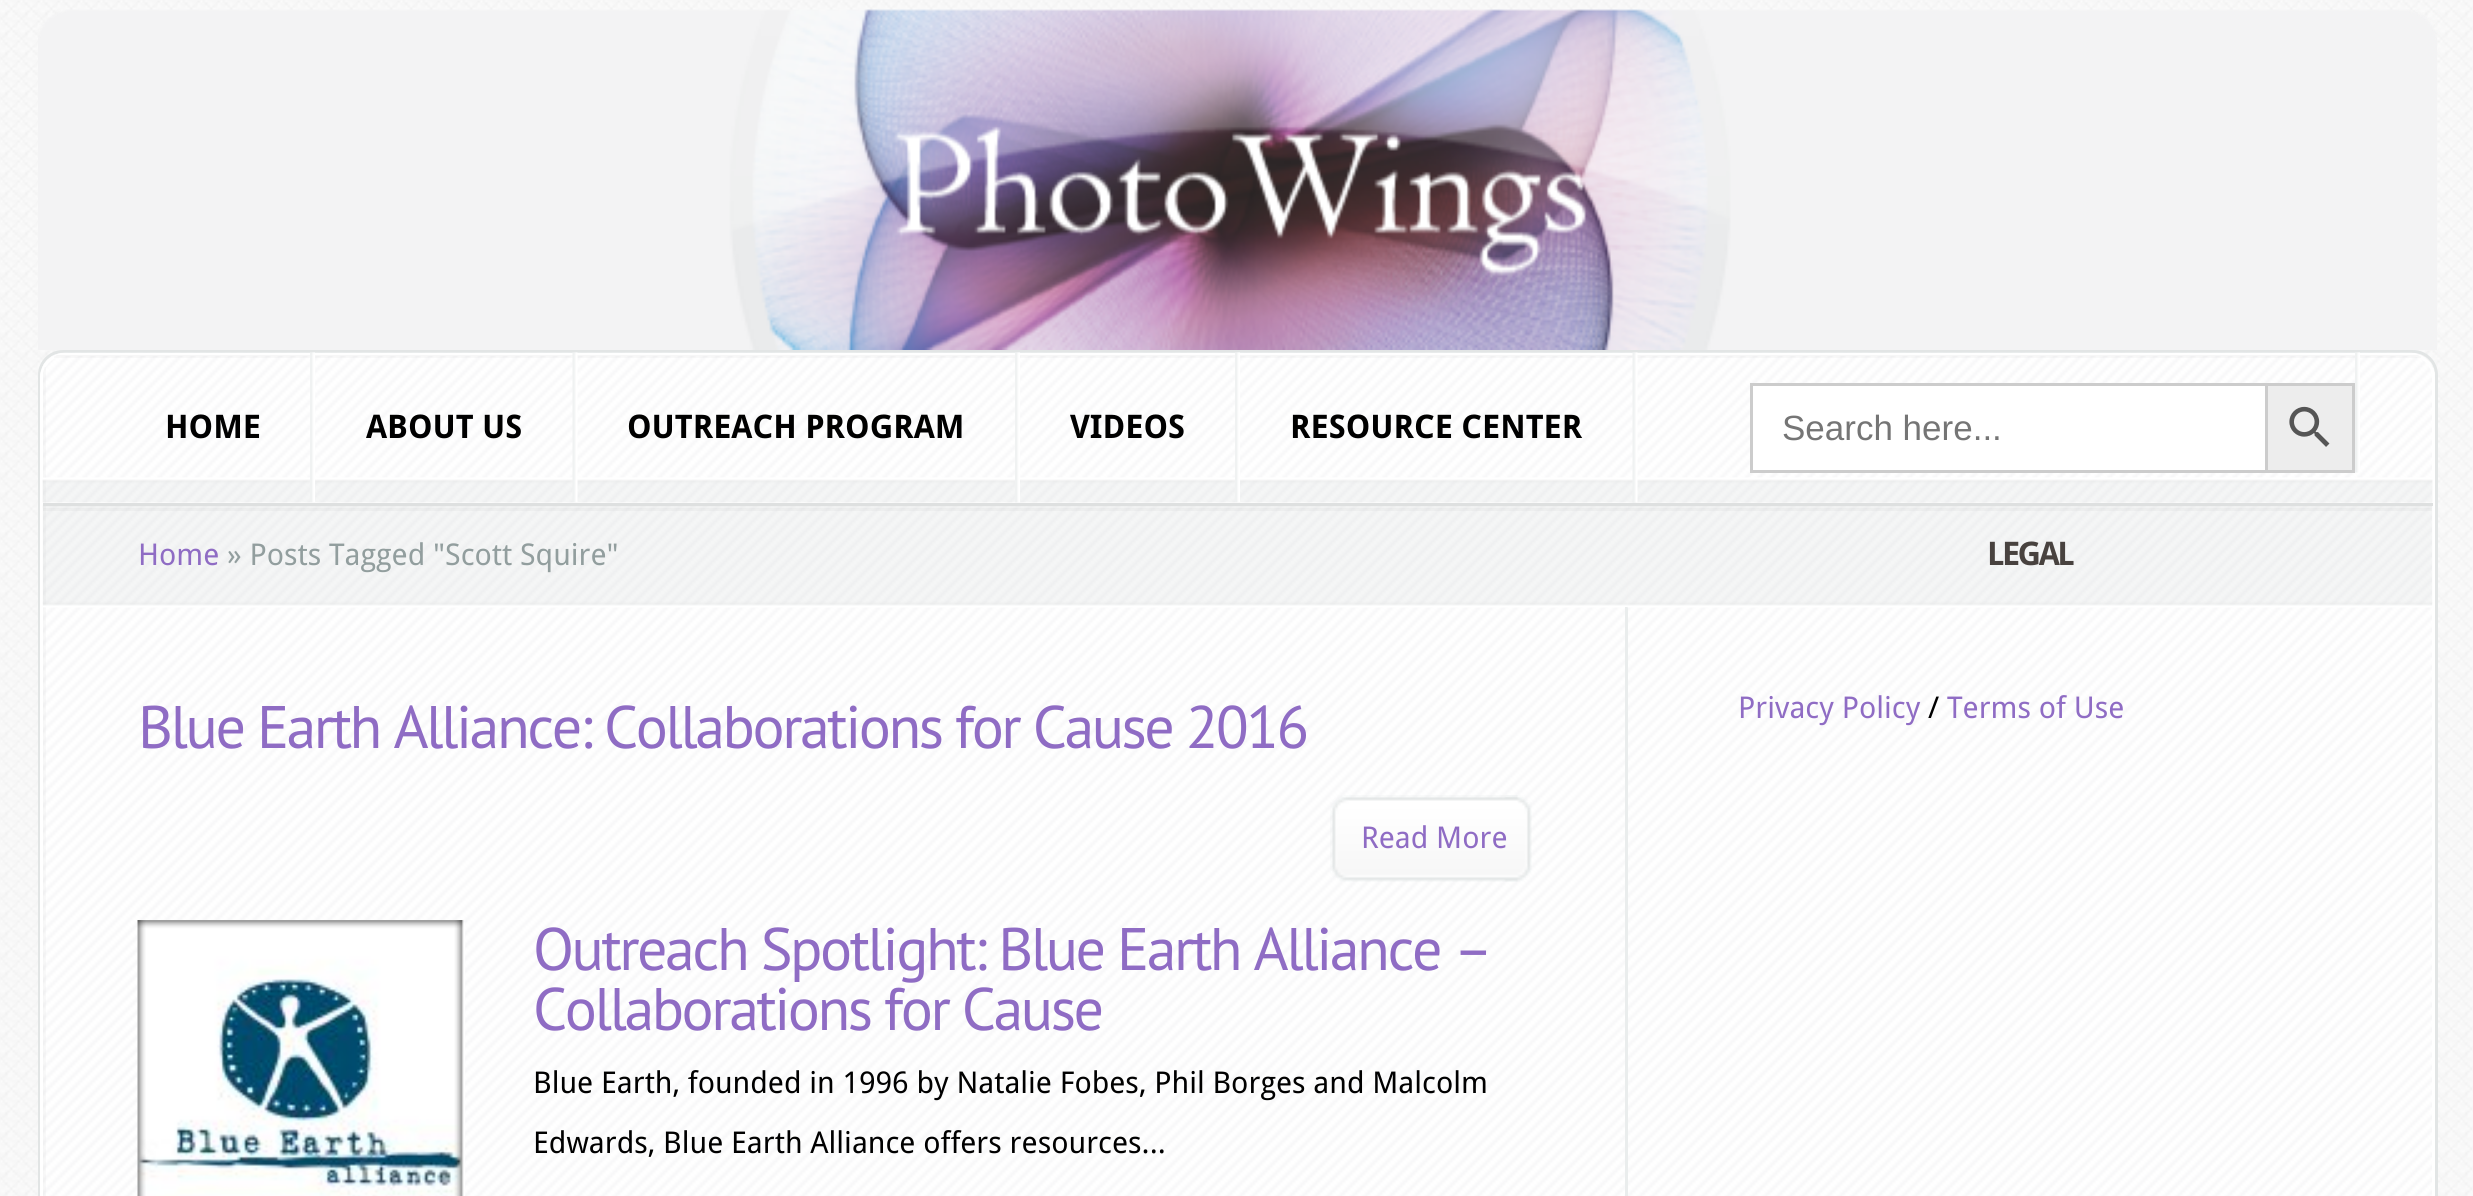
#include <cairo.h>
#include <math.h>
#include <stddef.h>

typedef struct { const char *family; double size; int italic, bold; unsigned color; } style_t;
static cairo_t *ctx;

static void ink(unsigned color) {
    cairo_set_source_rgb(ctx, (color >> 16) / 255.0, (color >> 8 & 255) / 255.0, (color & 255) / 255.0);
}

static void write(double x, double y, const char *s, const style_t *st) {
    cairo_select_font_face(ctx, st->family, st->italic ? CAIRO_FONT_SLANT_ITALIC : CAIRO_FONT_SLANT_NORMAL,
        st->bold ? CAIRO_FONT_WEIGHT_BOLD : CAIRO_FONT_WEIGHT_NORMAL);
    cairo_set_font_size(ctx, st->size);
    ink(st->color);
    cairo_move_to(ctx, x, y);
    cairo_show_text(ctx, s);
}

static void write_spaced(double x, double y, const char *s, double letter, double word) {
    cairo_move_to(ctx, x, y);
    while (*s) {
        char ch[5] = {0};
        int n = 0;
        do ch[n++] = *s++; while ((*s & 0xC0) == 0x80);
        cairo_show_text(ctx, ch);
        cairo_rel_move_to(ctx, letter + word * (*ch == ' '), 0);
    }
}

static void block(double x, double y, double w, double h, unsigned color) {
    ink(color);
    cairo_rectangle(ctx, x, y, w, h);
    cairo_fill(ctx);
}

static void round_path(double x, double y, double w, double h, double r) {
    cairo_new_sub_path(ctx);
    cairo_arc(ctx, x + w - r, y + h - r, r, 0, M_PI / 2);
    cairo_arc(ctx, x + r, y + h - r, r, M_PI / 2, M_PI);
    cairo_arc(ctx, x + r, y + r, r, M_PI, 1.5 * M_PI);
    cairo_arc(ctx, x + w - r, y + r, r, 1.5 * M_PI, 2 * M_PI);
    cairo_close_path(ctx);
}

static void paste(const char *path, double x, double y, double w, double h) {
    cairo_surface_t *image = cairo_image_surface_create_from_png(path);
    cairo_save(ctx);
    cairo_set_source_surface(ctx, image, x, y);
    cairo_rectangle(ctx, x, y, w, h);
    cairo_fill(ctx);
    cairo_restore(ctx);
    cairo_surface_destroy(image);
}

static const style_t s1 = {"Droid Sans", 32.5, 0, 1, 0x000000};
static const style_t s2 = {"Liberation Sans", 35, 0, 0, 0x757575};
static const style_t s3 = {"Droid Sans", 30, 0, 0, 0x8f6cc4};
static const style_t s4 = {"Droid Sans", 30, 0, 0, 0x929e9e};
static const style_t s5 = {"Droid Sans", 30, 0, 0, 0x000000};

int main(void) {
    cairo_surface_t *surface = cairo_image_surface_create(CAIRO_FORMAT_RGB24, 2473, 1196);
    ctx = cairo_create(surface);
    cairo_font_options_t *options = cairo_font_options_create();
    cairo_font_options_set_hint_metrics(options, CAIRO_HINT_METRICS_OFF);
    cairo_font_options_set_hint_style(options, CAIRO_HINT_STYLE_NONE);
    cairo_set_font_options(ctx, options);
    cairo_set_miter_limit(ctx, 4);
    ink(0xffffff);
    cairo_paint(ctx);
    paste("pic1.png", 0, 0, 2473, 1196);
    paste("pic2.png", 38, 9, 2399, 341);
    round_path(39.5, 351.5, 2397, 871, 23.5);
    ink(0xe2e5e5);
    cairo_set_line_width(ctx, 3);
    cairo_stroke(ctx);
    paste("pic3.png", 40, 352, 2395, 844);
    round_path(41.5, 354.5, 2392, 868, 23.5);
    ink(0xffffff);
    cairo_stroke(ctx);
    paste("pic4.png", 43, 367, 3, 829);
    paste("pic5.png", 54, 355, 2367, 3);
    paste("pic6.png", 42, 477, 2391, 26);
    paste("pic7.png", 310, 352, 5, 150);
    write(165, 438, "HOME", &s1);
    paste("pic8.png", 572, 352, 6, 150);
    write(366, 438, "ABOUT US", &s1);
    paste("pic9.png", 1015, 352, 5, 151);
    write(627, 438, "OUTREACH PROGRAM", &s1);
    paste("pic7.png", 1235, 352, 5, 150);
    write(1070, 438, "VIDEOS", &s1);
    paste("pic10.png", 1632, 352, 6, 151);
    write(1290, 438, "RESOURCE CENTER", &s1);
    paste("pic11.png", 2355, 352, 5, 121);
    block(1753, 386, 512, 84, 0xffffff);
    block(1750, 383, 515, 3, 0xcccccc);
    block(1750, 470, 515, 3, 0xcccccc);
    block(1750, 383, 3, 90, 0xcccccc);
    write(1782, 440, "Search here...", &s2);
    ink(0xededed);
    cairo_rectangle(ctx, 2266.5, 384.5, 87, 87);
    cairo_fill_preserve(ctx);
    ink(0xcccccc);
    cairo_stroke(ctx);
    paste("pic12.png", 2289, 406, 41, 41);
    paste("pic13.png", 42, 502, 1586, 106);
    block(1625, 607, 3, 589, 0xeaeded);
    paste("pic18.png", 1627, 506, 806, 102);
    cairo_set_source_rgba(ctx, 0, 0, 0, 0.03);
    cairo_rectangle(ctx, 43, 508, 2389, 3);
    cairo_fill(ctx);
    block(43, 503, 2390, 3, 0xdee0e0);
    write(138, 565, "Home", &s3);
    write(227, 565, "» Posts Tagged \"Scott Squire\"", &s4);
    cairo_select_font_face(ctx, "PT Sans", CAIRO_FONT_SLANT_NORMAL, CAIRO_FONT_WEIGHT_NORMAL);
    cairo_set_font_size(ctx, 60);
    ink(0x8f6cc4);
    write_spaced(138, 748, "Blue Earth Alliance: Collaborations for Cause 2016", -2.5, 0);
    paste("pic14.png", 1504, 795, 28, 87);
    paste("pic15.png", 1330, 795, 188, 87);
    write(1361, 848, "Read More", &s3);
    paste("pic16.png", 137, 920, 326, 276);
    paste("pic17.png", 137, 920, 328, 276);
    cairo_select_font_face(ctx, "PT Sans", CAIRO_FONT_SLANT_NORMAL, CAIRO_FONT_WEIGHT_NORMAL);
    cairo_set_font_size(ctx, 60);
    write_spaced(533, 970, "Outreach Spotlight: Blue Earth Alliance –", -2.5, 0);
    write_spaced(533, 1030, "Collaborations for Cause", -2.5, 0);
    write(533, 1093, "Blue Earth, founded in 1996 by Natalie Fobes, Phil Borges and Malcolm", &s5);
    write(533, 1153, "Edwards, Blue Earth Alliance offers resources...", &s5);
    cairo_select_font_face(ctx, "Droid Sans", CAIRO_FONT_SLANT_NORMAL, CAIRO_FONT_WEIGHT_BOLD);
    cairo_set_font_size(ctx, 32.5);
    ink(0x48423f);
    write_spaced(1987, 565, "LEGAL", -2.5, 0);
    write(1738, 718, "Privacy Policy", &s3);
    write(1928, 718, "/", &s5);
    write(1947, 718, "Terms of Use", &s3);
    cairo_surface_write_to_png(surface, "screenshot.png");
    cairo_font_options_destroy(options);
    cairo_destroy(ctx);
    cairo_surface_destroy(surface);
    return 0;
}
